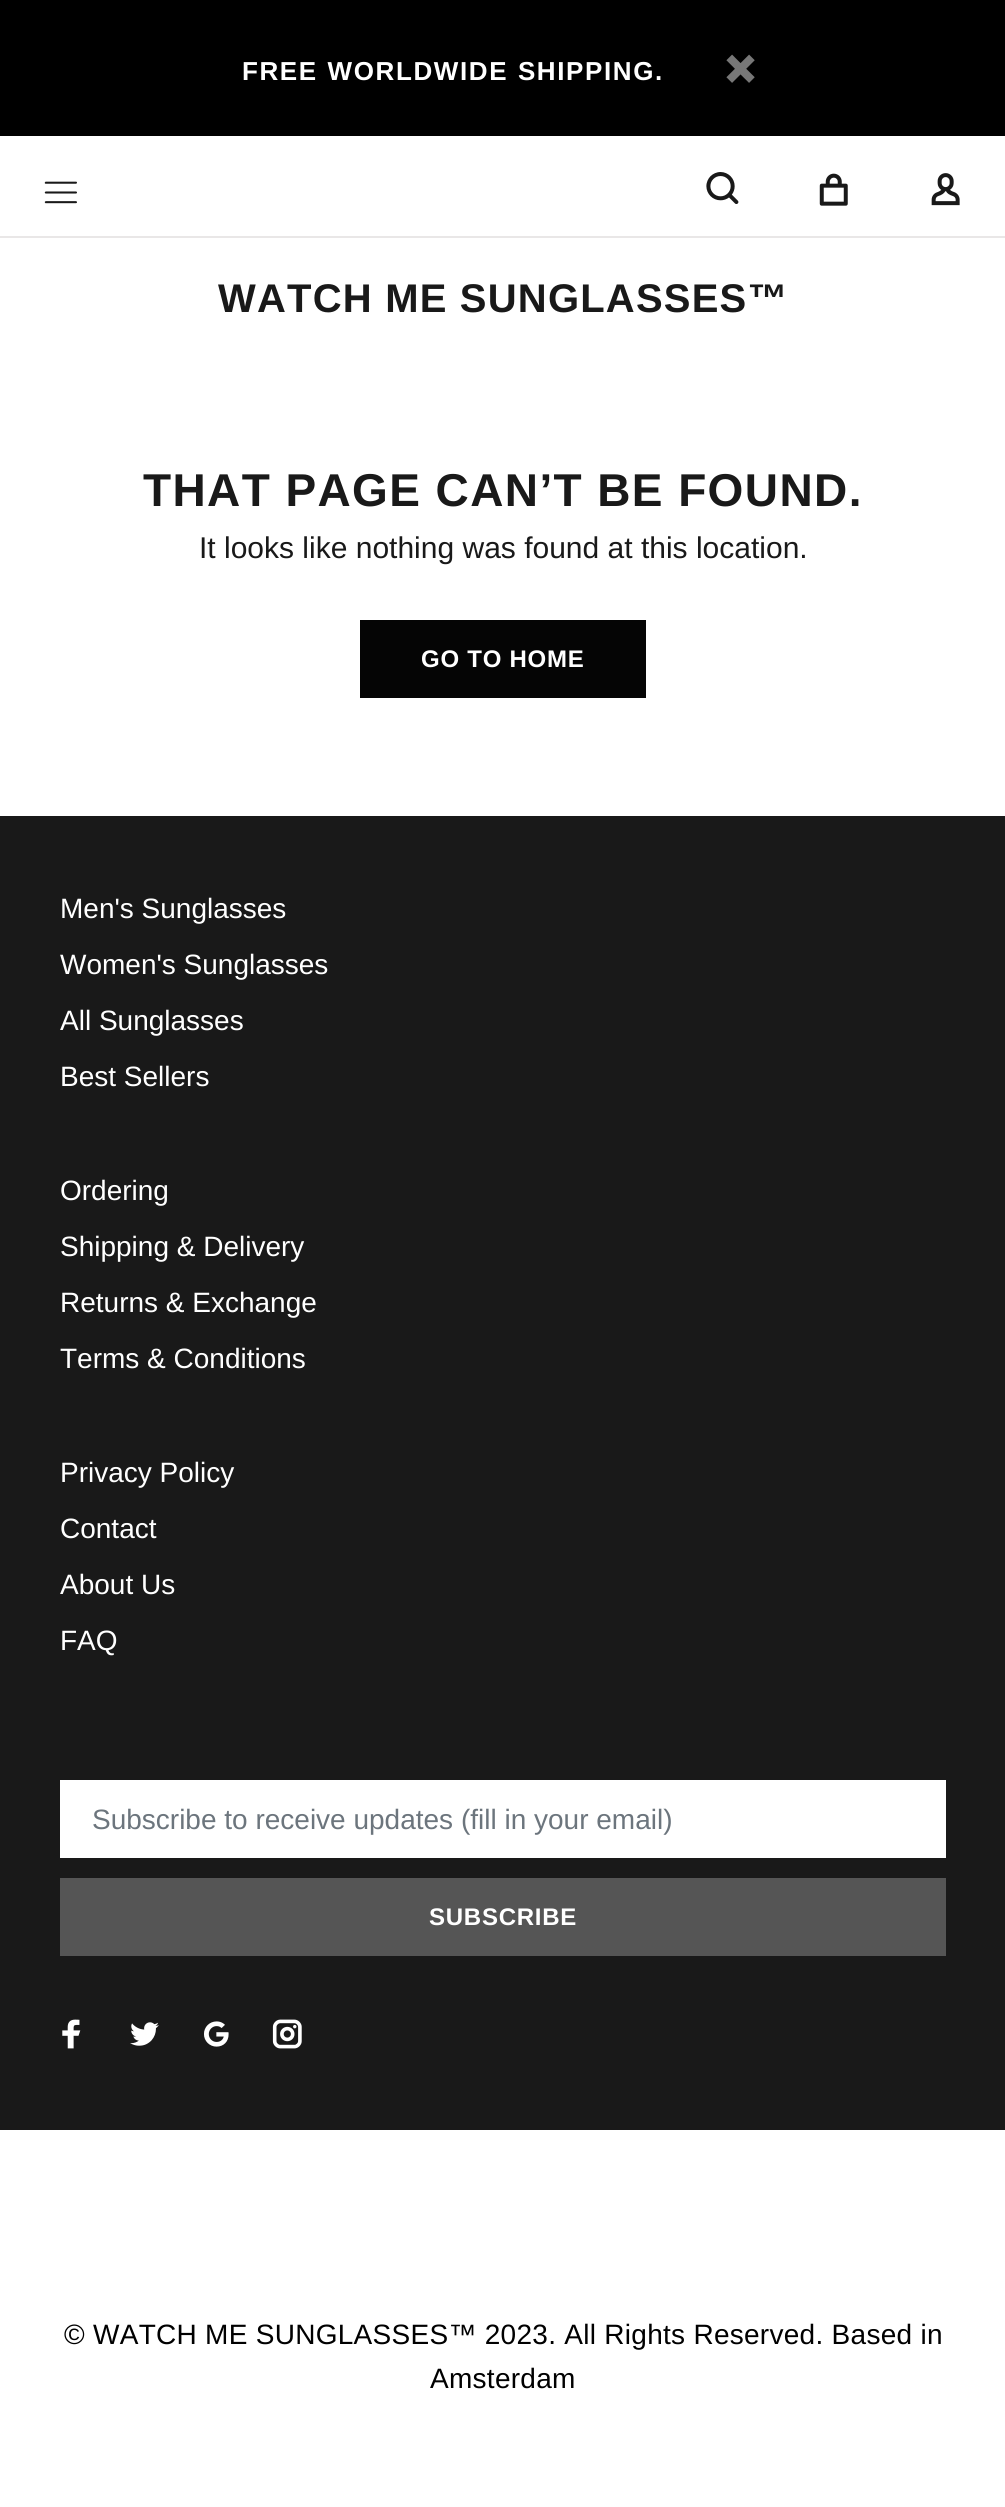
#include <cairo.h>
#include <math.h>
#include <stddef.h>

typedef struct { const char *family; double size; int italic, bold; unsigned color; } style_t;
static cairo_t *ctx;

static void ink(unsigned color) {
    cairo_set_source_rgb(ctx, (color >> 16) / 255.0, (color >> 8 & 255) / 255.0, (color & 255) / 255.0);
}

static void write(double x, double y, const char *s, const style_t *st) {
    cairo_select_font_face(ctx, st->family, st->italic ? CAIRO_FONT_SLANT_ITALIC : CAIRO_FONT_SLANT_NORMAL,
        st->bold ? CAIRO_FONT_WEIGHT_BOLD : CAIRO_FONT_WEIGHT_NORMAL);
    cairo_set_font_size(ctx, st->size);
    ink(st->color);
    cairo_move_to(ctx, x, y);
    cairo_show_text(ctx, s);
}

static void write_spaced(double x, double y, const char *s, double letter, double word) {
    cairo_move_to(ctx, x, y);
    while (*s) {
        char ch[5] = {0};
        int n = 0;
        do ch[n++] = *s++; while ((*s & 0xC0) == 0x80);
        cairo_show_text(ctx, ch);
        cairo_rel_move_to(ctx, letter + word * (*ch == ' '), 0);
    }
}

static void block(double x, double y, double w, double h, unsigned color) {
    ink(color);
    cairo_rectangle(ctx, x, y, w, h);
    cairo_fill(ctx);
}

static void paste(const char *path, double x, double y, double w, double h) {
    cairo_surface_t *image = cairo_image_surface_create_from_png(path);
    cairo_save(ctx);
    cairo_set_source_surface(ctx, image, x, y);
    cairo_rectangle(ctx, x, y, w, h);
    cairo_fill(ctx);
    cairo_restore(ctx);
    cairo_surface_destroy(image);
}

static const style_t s1 = {"Liberation Sans", 30, 0, 0, 0x191919};
static const style_t s2 = {"Liberation Sans", 28, 0, 0, 0xffffff};
static const style_t s3 = {"Liberation Sans", 28, 0, 0, 0x6c757d};

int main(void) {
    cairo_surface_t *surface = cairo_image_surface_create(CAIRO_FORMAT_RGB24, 1005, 2507);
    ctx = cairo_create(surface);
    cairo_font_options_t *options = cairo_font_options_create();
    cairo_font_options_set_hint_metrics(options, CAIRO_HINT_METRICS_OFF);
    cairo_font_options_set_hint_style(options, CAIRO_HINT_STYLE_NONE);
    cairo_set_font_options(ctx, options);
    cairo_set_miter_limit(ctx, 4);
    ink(0xffffff);
    cairo_paint(ctx);
    block(0, 0, 1005, 136, 0x000000);
    cairo_select_font_face(ctx, "Liberation Sans", CAIRO_FONT_SLANT_NORMAL, CAIRO_FONT_WEIGHT_BOLD);
    cairo_set_font_size(ctx, 26);
    ink(0xffffff);
    write_spaced(242, 80, "FREE WORLDWIDE SHIPPING.", 1.6, 1);
    paste("pic1.png", 726, 54, 29, 29);
    paste("pic2.png", 44, 181, 33, 23);
    paste("pic3.png", 706, 172, 33, 32);
    paste("pic4.png", 819, 173, 29, 33);
    paste("pic5.png", 931, 173, 29, 33);
    block(0, 236, 1005, 2, 0xe9e7e7);
    cairo_set_font_size(ctx, 40);
    ink(0x191919);
    write_spaced(218, 312, "WATCH ME SUNGLASSES™", 1.2, 0);
    cairo_set_font_size(ctx, 46);
    write_spaced(143, 506, "THAT PAGE CAN’T BE FOUND.", 1.4, 0);
    write(199, 558, "It looks like nothing was found at this location.", &s1);
    block(360, 620, 286, 78, 0x050505);
    cairo_select_font_face(ctx, "Liberation Sans", CAIRO_FONT_SLANT_NORMAL, CAIRO_FONT_WEIGHT_BOLD);
    cairo_set_font_size(ctx, 24);
    ink(0xffffff);
    write_spaced(421, 667, "GO TO HOME", 0.75, 0);
    block(0, 816, 1005, 1314, 0x191919);
    write(60, 918, "Men's Sunglasses", &s2);
    write(60, 974, "Women's Sunglasses", &s2);
    write(60, 1030, "All Sunglasses", &s2);
    write(60, 1086, "Best Sellers", &s2);
    write(60, 1200, "Ordering", &s2);
    write(60, 1256, "Shipping & Delivery", &s2);
    write(60, 1312, "Returns & Exchange", &s2);
    write(60, 1368, "Terms & Conditions", &s2);
    write(60, 1482, "Privacy Policy", &s2);
    write(60, 1538, "Contact", &s2);
    write(60, 1594, "About Us", &s2);
    write(60, 1650, "FAQ", &s2);
    block(60, 1780, 886, 78, 0xffffff);
    write(92, 1829, "Subscribe to receive updates (fill in your email)", &s3);
    block(60, 1878, 886, 78, 0x555555);
    cairo_select_font_face(ctx, "Liberation Sans", CAIRO_FONT_SLANT_NORMAL, CAIRO_FONT_WEIGHT_BOLD);
    cairo_set_font_size(ctx, 24);
    ink(0xffffff);
    write_spaced(429, 1925, "SUBSCRIBE", 0.75, 0);
    paste("pic6.png", 62, 2019, 19, 30);
    paste("pic7.png", 130, 2022, 29, 24);
    paste("pic8.png", 204, 2021, 25, 26);
    paste("pic9.png", 272, 2019, 30, 30);
    cairo_select_font_face(ctx, "Liberation Sans", CAIRO_FONT_SLANT_NORMAL, CAIRO_FONT_WEIGHT_NORMAL);
    cairo_set_font_size(ctx, 28);
    ink(0x000000);
    write_spaced(64, 2344, "© WATCH ME SUNGLASSES™ 2023. All Rights Reserved. Based in", 0.28, 0);
    write_spaced(430, 2388, "Amsterdam", 0.28, 0);
    cairo_surface_write_to_png(surface, "screenshot.png");
    cairo_font_options_destroy(options);
    cairo_destroy(ctx);
    cairo_surface_destroy(surface);
    return 0;
}
